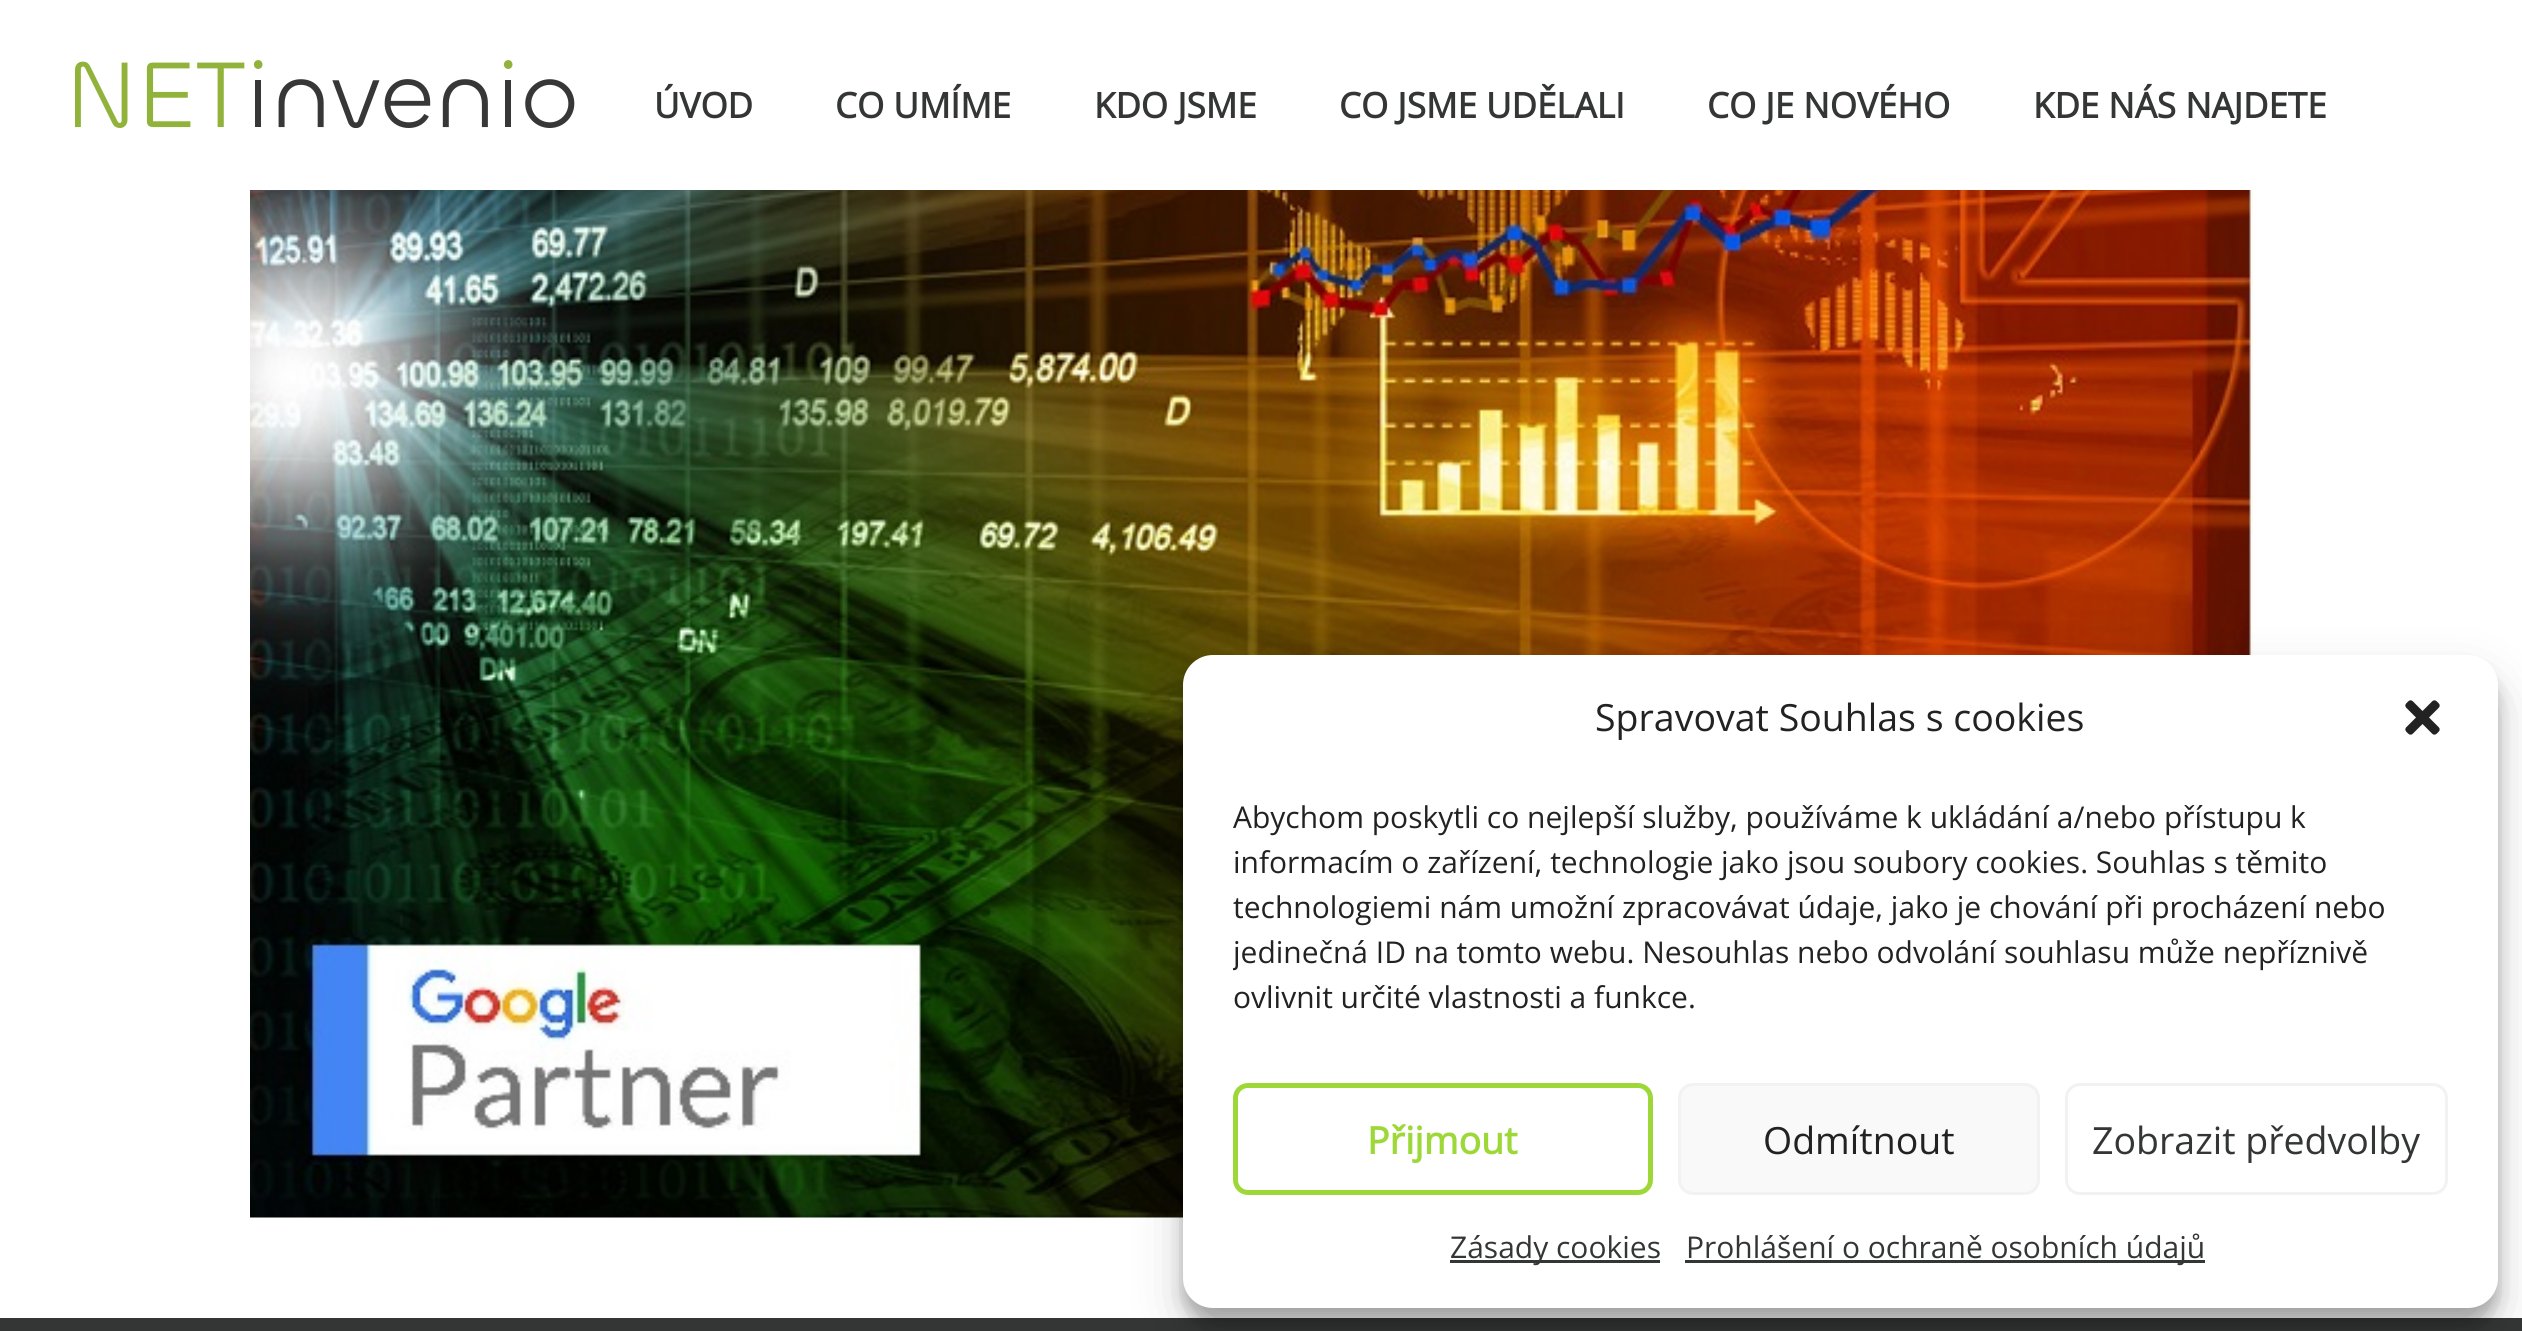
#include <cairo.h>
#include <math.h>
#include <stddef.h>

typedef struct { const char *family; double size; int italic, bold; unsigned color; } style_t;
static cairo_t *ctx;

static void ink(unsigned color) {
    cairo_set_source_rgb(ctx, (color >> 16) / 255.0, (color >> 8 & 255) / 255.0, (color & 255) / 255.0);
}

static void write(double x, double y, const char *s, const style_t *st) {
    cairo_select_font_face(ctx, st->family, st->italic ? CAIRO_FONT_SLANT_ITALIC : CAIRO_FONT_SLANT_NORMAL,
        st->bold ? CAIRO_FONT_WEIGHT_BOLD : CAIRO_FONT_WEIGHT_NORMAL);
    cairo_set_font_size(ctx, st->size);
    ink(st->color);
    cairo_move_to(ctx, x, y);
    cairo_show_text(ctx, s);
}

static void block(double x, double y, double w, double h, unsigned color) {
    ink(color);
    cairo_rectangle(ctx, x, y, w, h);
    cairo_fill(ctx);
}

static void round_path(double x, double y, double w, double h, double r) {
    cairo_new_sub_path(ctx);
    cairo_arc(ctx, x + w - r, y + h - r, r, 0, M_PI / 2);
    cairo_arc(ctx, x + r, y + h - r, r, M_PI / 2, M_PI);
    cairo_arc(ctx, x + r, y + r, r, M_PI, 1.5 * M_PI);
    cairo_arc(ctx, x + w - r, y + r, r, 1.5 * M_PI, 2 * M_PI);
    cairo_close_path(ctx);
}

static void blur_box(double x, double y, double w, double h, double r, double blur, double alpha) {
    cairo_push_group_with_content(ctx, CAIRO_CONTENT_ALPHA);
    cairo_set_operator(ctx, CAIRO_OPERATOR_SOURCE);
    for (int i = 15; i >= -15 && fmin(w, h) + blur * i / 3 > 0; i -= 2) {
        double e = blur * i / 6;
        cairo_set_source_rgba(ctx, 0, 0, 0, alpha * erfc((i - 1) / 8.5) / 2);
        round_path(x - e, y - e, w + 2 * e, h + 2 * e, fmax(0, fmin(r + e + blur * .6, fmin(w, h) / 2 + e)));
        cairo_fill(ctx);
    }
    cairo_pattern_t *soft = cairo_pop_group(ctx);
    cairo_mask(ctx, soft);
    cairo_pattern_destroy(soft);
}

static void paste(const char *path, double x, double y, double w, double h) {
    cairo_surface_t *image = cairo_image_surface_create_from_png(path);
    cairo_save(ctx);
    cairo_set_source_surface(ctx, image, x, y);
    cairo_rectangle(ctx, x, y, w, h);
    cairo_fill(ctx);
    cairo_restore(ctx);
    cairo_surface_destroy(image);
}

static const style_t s1 = {"Open Sans", 35, 0, 1, 0x343636};
static const style_t s2 = {"Open Sans", 37.5, 0, 0, 0x222222};
static const style_t s3 = {"Open Sans", 30, 0, 0, 0x222222};
static const style_t s4 = {"Open Sans", 37.5, 0, 1, 0x9ed838};
static const style_t s5 = {"Open Sans", 37.5, 0, 0, 0x343636};
static const style_t s6 = {"Open Sans", 30, 0, 0, 0x343636};

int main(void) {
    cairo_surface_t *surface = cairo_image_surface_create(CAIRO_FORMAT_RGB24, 2522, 1331);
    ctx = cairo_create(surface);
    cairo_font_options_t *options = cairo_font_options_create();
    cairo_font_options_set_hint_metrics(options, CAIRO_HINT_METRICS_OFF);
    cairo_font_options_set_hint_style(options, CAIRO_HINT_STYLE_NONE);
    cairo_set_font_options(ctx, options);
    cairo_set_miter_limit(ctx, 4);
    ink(0xffffff);
    cairo_paint(ctx);
    paste("pic1.png", 75, 60, 500, 68);
    write(654, 118, "ÚVOD", &s1);
    write(835, 118, "CO UMÍME", &s1);
    write(1094, 118, "KDO JSME", &s1);
    write(1339, 118, "CO JSME UDĚLALI", &s1);
    write(1707, 118, "CO JE NOVÉHO", &s1);
    write(2033, 118, "KDE NÁS NAJDETE", &s1);
    paste("pic2.png", 250, 190, 2003, 1028);
    block(0, 1318, 2522, 13, 0x343636);
    ink(0x000000);
    blur_box(1183, 670, 1315, 653, 30, 7.5, 0.23);
    blur_box(1183, 680, 1315, 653, 30, 25, 0.19);
    ink(0xffffff);
    round_path(1183, 655, 1315, 653, 30);
    cairo_fill(ctx);
    write(1595, 731, "Spravovat Souhlas s cookies", &s2);
    paste("pic3.png", 2405, 700, 35, 35);
    write(1233, 828, "Abychom poskytli co nejlepší služby, používáme k ukládání a/nebo přístupu k", &s3);
    write(1233, 873, "informacím o zařízení, technologie jako jsou soubory cookies. Souhlas s těmito", &s3);
    write(1233, 918, "technologiemi nám umožní zpracovávat údaje, jako je chování při procházení nebo", &s3);
    cairo_save(ctx);
    cairo_rectangle(ctx, 1233, 795, 1215, 238);
    cairo_clip(ctx);
    write(1233, 963, "jedinečná ID na tomto webu. Nesouhlas nebo odvolání souhlasu může nepříznivě", &s3);
    cairo_restore(ctx);
    write(1233, 1008, "ovlivnit určité vlastnosti a funkce.", &s3);
    round_path(1235.5, 1085.5, 415, 107, 12.5);
    ink(0x9ed838);
    cairo_set_line_width(ctx, 5);
    cairo_stroke(ctx);
    write(1367, 1154, "Přijmout", &s4);
    ink(0xf9f9f9);
    round_path(1679.5, 1084.5, 359, 109, 13.5);
    cairo_fill_preserve(ctx);
    ink(0xf2f2f2);
    cairo_set_line_width(ctx, 3);
    cairo_stroke(ctx);
    write(1763, 1154, "Odmítnout", &s2);
    round_path(2066.5, 1084.5, 380, 109, 13.5);
    ink(0xf2f2f2);
    cairo_stroke(ctx);
    write(2092, 1154, "Zobrazit předvolby", &s5);
    block(1450, 1260, 210, 3, 0x343636);
    write(1450, 1258, "Zásady cookies", &s6);
    block(1685, 1260, 520, 3, 0x343636);
    write(1686, 1258, "Prohlášení o ochraně osobních údajů", &s6);
    cairo_surface_write_to_png(surface, "screenshot.png");
    cairo_font_options_destroy(options);
    cairo_destroy(ctx);
    cairo_surface_destroy(surface);
    return 0;
}
